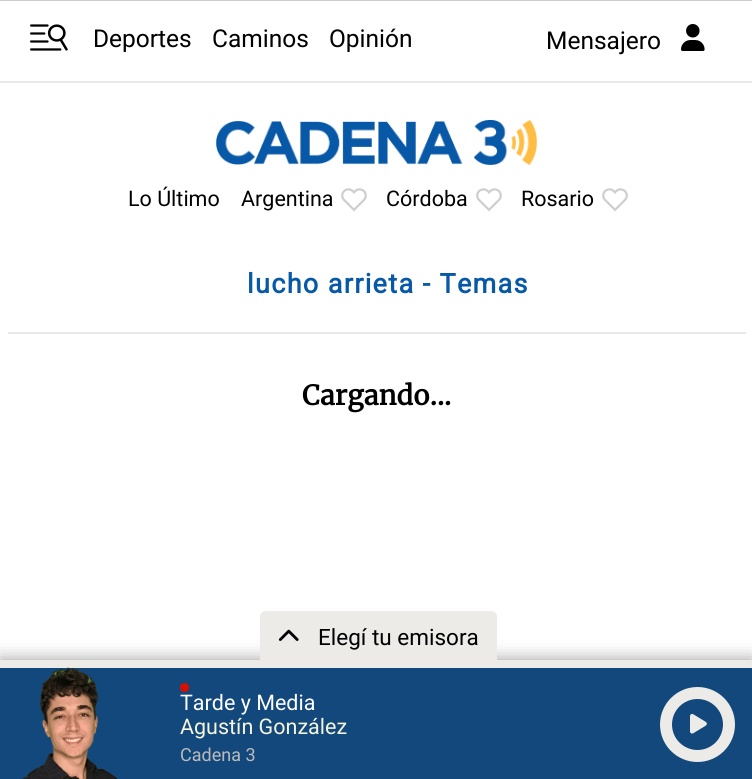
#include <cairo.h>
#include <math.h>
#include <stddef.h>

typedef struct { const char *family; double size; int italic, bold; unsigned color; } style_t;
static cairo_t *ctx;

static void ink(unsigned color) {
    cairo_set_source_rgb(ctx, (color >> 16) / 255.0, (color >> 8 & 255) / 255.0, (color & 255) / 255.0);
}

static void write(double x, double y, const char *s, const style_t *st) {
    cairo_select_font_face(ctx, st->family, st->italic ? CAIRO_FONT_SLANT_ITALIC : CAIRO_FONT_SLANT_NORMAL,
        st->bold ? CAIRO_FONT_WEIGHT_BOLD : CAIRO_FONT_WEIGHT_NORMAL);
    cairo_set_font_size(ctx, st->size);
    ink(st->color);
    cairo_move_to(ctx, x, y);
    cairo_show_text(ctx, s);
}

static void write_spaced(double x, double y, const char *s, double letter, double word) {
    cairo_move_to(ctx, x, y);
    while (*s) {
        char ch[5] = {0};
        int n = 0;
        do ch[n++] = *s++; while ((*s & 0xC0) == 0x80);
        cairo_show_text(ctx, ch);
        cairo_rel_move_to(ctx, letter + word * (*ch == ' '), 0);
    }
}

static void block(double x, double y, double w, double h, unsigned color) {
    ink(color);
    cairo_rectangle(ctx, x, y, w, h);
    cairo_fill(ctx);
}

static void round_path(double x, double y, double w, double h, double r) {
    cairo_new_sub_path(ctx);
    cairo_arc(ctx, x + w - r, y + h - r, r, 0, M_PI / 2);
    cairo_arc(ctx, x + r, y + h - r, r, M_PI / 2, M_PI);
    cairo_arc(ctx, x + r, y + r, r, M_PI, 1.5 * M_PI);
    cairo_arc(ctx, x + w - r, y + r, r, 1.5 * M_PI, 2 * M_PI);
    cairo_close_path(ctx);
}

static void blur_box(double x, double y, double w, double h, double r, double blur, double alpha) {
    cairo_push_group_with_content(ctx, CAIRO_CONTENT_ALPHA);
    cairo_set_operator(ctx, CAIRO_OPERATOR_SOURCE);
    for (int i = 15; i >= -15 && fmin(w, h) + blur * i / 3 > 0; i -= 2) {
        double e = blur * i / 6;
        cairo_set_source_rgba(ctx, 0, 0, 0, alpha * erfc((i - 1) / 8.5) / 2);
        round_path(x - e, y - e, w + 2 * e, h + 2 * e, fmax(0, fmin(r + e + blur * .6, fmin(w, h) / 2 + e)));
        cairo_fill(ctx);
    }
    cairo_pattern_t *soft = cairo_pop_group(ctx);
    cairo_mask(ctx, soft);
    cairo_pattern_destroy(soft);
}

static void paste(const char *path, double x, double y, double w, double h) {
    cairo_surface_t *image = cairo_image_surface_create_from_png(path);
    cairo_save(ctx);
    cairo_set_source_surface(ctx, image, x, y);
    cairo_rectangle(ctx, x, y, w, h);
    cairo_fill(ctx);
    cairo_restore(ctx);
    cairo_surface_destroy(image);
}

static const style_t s1 = {"Roboto", 24.5, 0, 0, 0x000000};
static const style_t s2 = {"Roboto", 21.5, 0, 0, 0x000000};
static const style_t s3 = {"Merriweather", 27, 0, 1, 0x000000};
static const style_t s4 = {"Roboto", 22.5, 0, 0, 0x000000};
static const style_t s5 = {"Roboto", 21.5, 0, 0, 0xffffff};
static const style_t s6 = {"Roboto", 21.5, 0, 0, 0xf5f5dc};
static const style_t s7 = {"Roboto", 18, 0, 0, 0xbbbbbb};

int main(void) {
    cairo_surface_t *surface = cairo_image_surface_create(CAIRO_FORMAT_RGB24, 752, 779);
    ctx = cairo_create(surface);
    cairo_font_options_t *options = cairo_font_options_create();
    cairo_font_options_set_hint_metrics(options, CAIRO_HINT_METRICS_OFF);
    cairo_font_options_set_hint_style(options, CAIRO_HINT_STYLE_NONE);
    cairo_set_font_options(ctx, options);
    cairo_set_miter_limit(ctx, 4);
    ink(0xffffff);
    cairo_paint(ctx);
    block(0, 0, 752, 1, 0xcccccc);
    block(0, 81, 752, 2, 0xe9e9e9);
    paste("pic1.png", 30, 24, 38, 27);
    write(93, 47, "Deportes", &s1);
    write(212, 47, "Caminos", &s1);
    write(329, 47, "Opinión", &s1);
    write(546, 49, "Mensajero", &s1);
    paste("pic2.png", 681, 24, 24, 27);
    paste("pic3.png", 216, 120, 321, 45);
    write(128, 206, "Lo Último", &s2);
    write(241, 206, "Argentina", &s2);
    paste("pic4.png", 341, 188, 26, 24);
    write(386, 206, "Córdoba", &s2);
    paste("pic4.png", 476, 188, 26, 24);
    write(521, 206, "Rosario", &s2);
    paste("pic4.png", 602, 188, 26, 24);
    block(8, 332, 738, 2, 0xe9e9e9);
    cairo_select_font_face(ctx, "Roboto", CAIRO_FONT_SLANT_NORMAL, CAIRO_FONT_WEIGHT_BOLD);
    cairo_set_font_size(ctx, 27);
    ink(0x0858a8);
    write_spaced(247, 293, "lucho arrieta - Temas", 1.35, 0);
    write(302, 405, "Cargando...", &s3);
    ink(0x000000);
    blur_box(0, 660, 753, 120, 0, 9, 0.4);
    block(0, 668, 752, 111, 0x13487d);
    block(0, 660, 752, 8, 0xecebe7);
    cairo_new_path(ctx);
    cairo_move_to(ctx, 266, 611);
    cairo_line_to(ctx, 491, 611);
    cairo_curve_to(ctx, 494.5, 611, 497, 613.5, 497, 617);
    cairo_line_to(ctx, 497, 668);
    cairo_line_to(ctx, 260, 668);
    cairo_line_to(ctx, 260, 617);
    cairo_curve_to(ctx, 260, 613.5, 262.5, 611, 266, 611);
    cairo_close_path(ctx);
    cairo_fill(ctx);
    paste("pic5.png", 278, 629, 21, 12);
    write(318, 645, "Elegí tu emisora", &s4);
    paste("pic6.png", 21, 667, 97, 112);
    ink(0xd70f00);
    cairo_arc(ctx, 184.5, 687.5, 4.5, 0, 2 * M_PI);
    cairo_fill(ctx);
    write(180, 710, "Tarde y Media", &s5);
    write(180, 734, "Agustín González", &s6);
    write(180, 761, "Cadena 3", &s7);
    cairo_new_path(ctx);
    cairo_arc(ctx, 697.5, 724.5, 31.5, 0, 2 * M_PI);
    ink(0xecebe7);
    cairo_set_line_width(ctx, 12);
    cairo_stroke(ctx);
    paste("pic7.png", 690, 713, 17, 21);
    cairo_surface_write_to_png(surface, "screenshot.png");
    cairo_font_options_destroy(options);
    cairo_destroy(ctx);
    cairo_surface_destroy(surface);
    return 0;
}
